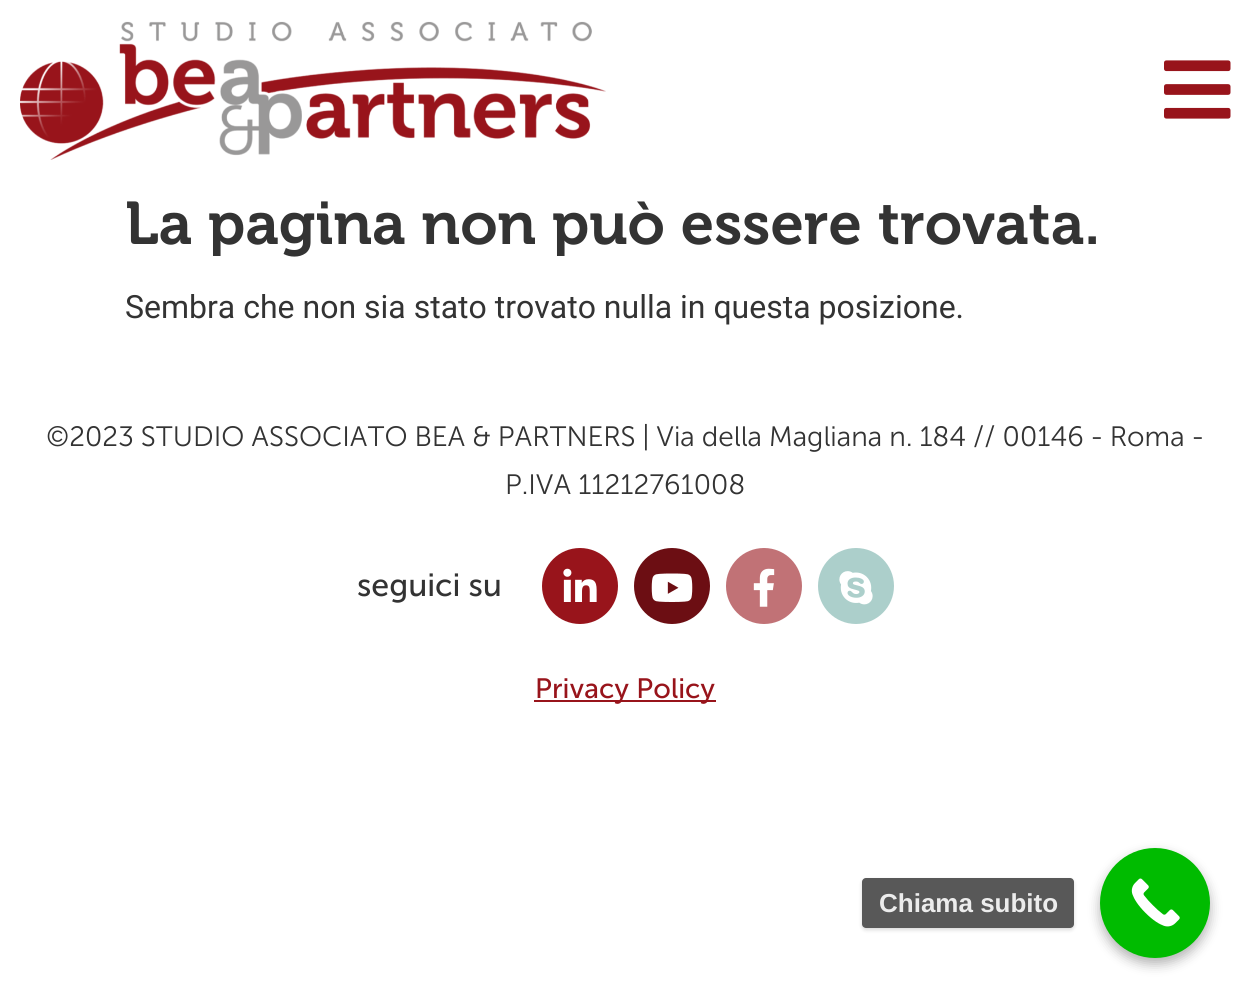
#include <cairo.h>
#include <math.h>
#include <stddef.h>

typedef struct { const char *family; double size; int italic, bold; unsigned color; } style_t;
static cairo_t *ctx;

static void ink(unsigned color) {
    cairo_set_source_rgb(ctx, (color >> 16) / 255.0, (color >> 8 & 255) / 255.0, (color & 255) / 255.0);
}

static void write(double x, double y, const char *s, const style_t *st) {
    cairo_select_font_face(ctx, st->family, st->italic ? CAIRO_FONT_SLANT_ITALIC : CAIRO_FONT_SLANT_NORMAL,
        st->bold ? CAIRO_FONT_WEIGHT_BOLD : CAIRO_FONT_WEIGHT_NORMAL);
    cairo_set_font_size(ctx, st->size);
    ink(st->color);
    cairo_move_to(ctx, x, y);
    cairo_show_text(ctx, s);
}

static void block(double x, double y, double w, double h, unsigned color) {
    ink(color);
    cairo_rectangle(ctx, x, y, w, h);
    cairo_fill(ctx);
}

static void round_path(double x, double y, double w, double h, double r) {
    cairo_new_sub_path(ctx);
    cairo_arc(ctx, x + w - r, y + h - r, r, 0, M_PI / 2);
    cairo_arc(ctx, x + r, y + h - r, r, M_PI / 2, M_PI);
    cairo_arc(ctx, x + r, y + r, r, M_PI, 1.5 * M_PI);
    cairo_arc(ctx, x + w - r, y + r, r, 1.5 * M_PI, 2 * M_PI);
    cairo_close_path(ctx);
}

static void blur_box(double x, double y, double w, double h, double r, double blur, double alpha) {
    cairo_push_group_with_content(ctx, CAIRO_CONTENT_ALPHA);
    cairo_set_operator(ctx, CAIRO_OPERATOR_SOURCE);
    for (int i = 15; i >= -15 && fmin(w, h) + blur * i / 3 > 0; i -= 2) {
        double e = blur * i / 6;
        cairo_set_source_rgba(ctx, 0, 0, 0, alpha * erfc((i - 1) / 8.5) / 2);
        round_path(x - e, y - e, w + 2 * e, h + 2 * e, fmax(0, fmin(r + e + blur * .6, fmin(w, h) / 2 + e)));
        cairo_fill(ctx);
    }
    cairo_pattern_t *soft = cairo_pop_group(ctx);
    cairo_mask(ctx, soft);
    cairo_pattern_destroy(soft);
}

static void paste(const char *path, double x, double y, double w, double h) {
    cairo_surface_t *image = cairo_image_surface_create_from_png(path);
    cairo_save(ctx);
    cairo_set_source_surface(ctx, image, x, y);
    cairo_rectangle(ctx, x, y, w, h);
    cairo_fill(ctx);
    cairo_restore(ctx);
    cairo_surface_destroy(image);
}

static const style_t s1 = {"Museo", 60, 0, 0, 0x333333};
static const style_t s2 = {"Roboto", 32, 0, 0, 0x333333};
static const style_t s3 = {"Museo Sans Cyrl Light", 28, 0, 0, 0x333333};
static const style_t s4 = {"Museo Sans Cyrl", 32, 0, 0, 0x333333};
static const style_t s5 = {"Museo Sans Cyrl", 28, 0, 0, 0x98141b};
static const style_t s6 = {"Liberation Sans", 26, 0, 1, 0xececec};

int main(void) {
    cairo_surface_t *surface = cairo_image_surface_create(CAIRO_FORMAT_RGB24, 1250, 987);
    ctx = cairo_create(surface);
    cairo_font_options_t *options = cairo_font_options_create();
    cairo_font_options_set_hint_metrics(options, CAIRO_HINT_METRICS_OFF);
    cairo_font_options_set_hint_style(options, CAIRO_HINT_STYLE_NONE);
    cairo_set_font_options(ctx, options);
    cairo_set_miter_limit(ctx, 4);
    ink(0xffffff);
    cairo_paint(ctx);
    paste("pic1.png", 20, 21, 586, 139);
    paste("pic2.png", 1164, 60, 67, 59);
    write(125, 244, "La pagina non può essere trovata.", &s1);
    write(125, 318, "Sembra che non sia stato trovato nulla in questa posizione.", &s2);
    write(46, 446, "©2023 STUDIO ASSOCIATO BEA & PARTNERS | Via della Magliana n. 184 // 00146 - Roma -", &s3);
    write(505, 494, "P.IVA 11212761008", &s3);
    write(357, 596, "seguici su", &s4);
    ink(0x98141b);
    cairo_new_path(ctx);
    cairo_arc(ctx, 580, 586, 38, 0, 2 * M_PI);
    cairo_fill(ctx);
    paste("pic3.png", 563, 568, 34, 34);
    ink(0x6c0e13);
    cairo_arc(ctx, 672, 586, 38, 0, 2 * M_PI);
    cairo_fill(ctx);
    paste("pic4.png", 651, 573, 42, 29);
    ink(0xc17276);
    cairo_arc(ctx, 764, 586, 38, 0, 2 * M_PI);
    cairo_fill(ctx);
    paste("pic5.png", 753, 568, 22, 39);
    ink(0xaccfcb);
    cairo_arc(ctx, 856, 586, 38, 0, 2 * M_PI);
    cairo_fill(ctx);
    paste("pic6.png", 839, 571, 34, 34);
    block(534, 700, 182, 2, 0x98141b);
    write(535, 698, "Privacy Policy", &s5);
    ink(0x000000);
    blur_box(1100, 854, 110, 110, 55, 6, 0.3);
    ink(0x00bb00);
    cairo_arc(ctx, 1155, 903, 55, 0, 2 * M_PI);
    cairo_fill(ctx);
    paste("pic7.png", 1131, 878, 49, 49);
    cairo_save(ctx);
    cairo_set_fill_rule(ctx, CAIRO_FILL_RULE_EVEN_ODD);
    cairo_new_path(ctx);
    cairo_move_to(ctx, 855, 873);
    cairo_line_to(ctx, 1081, 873);
    cairo_line_to(ctx, 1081, 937);
    cairo_line_to(ctx, 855, 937);
    cairo_close_path(ctx);
    cairo_move_to(ctx, 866, 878);
    cairo_line_to(ctx, 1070, 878);
    cairo_curve_to(ctx, 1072, 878, 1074, 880, 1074, 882);
    cairo_line_to(ctx, 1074, 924);
    cairo_curve_to(ctx, 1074, 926, 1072, 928, 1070, 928);
    cairo_line_to(ctx, 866, 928);
    cairo_curve_to(ctx, 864, 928, 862, 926, 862, 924);
    cairo_line_to(ctx, 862, 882);
    cairo_curve_to(ctx, 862, 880, 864, 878, 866, 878);
    cairo_close_path(ctx);
    cairo_clip(ctx);
    ink(0x000000);
    blur_box(862, 880, 212, 50, 4, 2, 0.15);
    cairo_restore(ctx);
    cairo_set_source_rgba(ctx, 0.275, 0.275, 0.275, 0.9);
    round_path(862, 878, 212, 50, 4);
    cairo_fill(ctx);
    write(879, 912, "Chiama subito", &s6);
    cairo_surface_write_to_png(surface, "screenshot.png");
    cairo_font_options_destroy(options);
    cairo_destroy(ctx);
    cairo_surface_destroy(surface);
    return 0;
}
